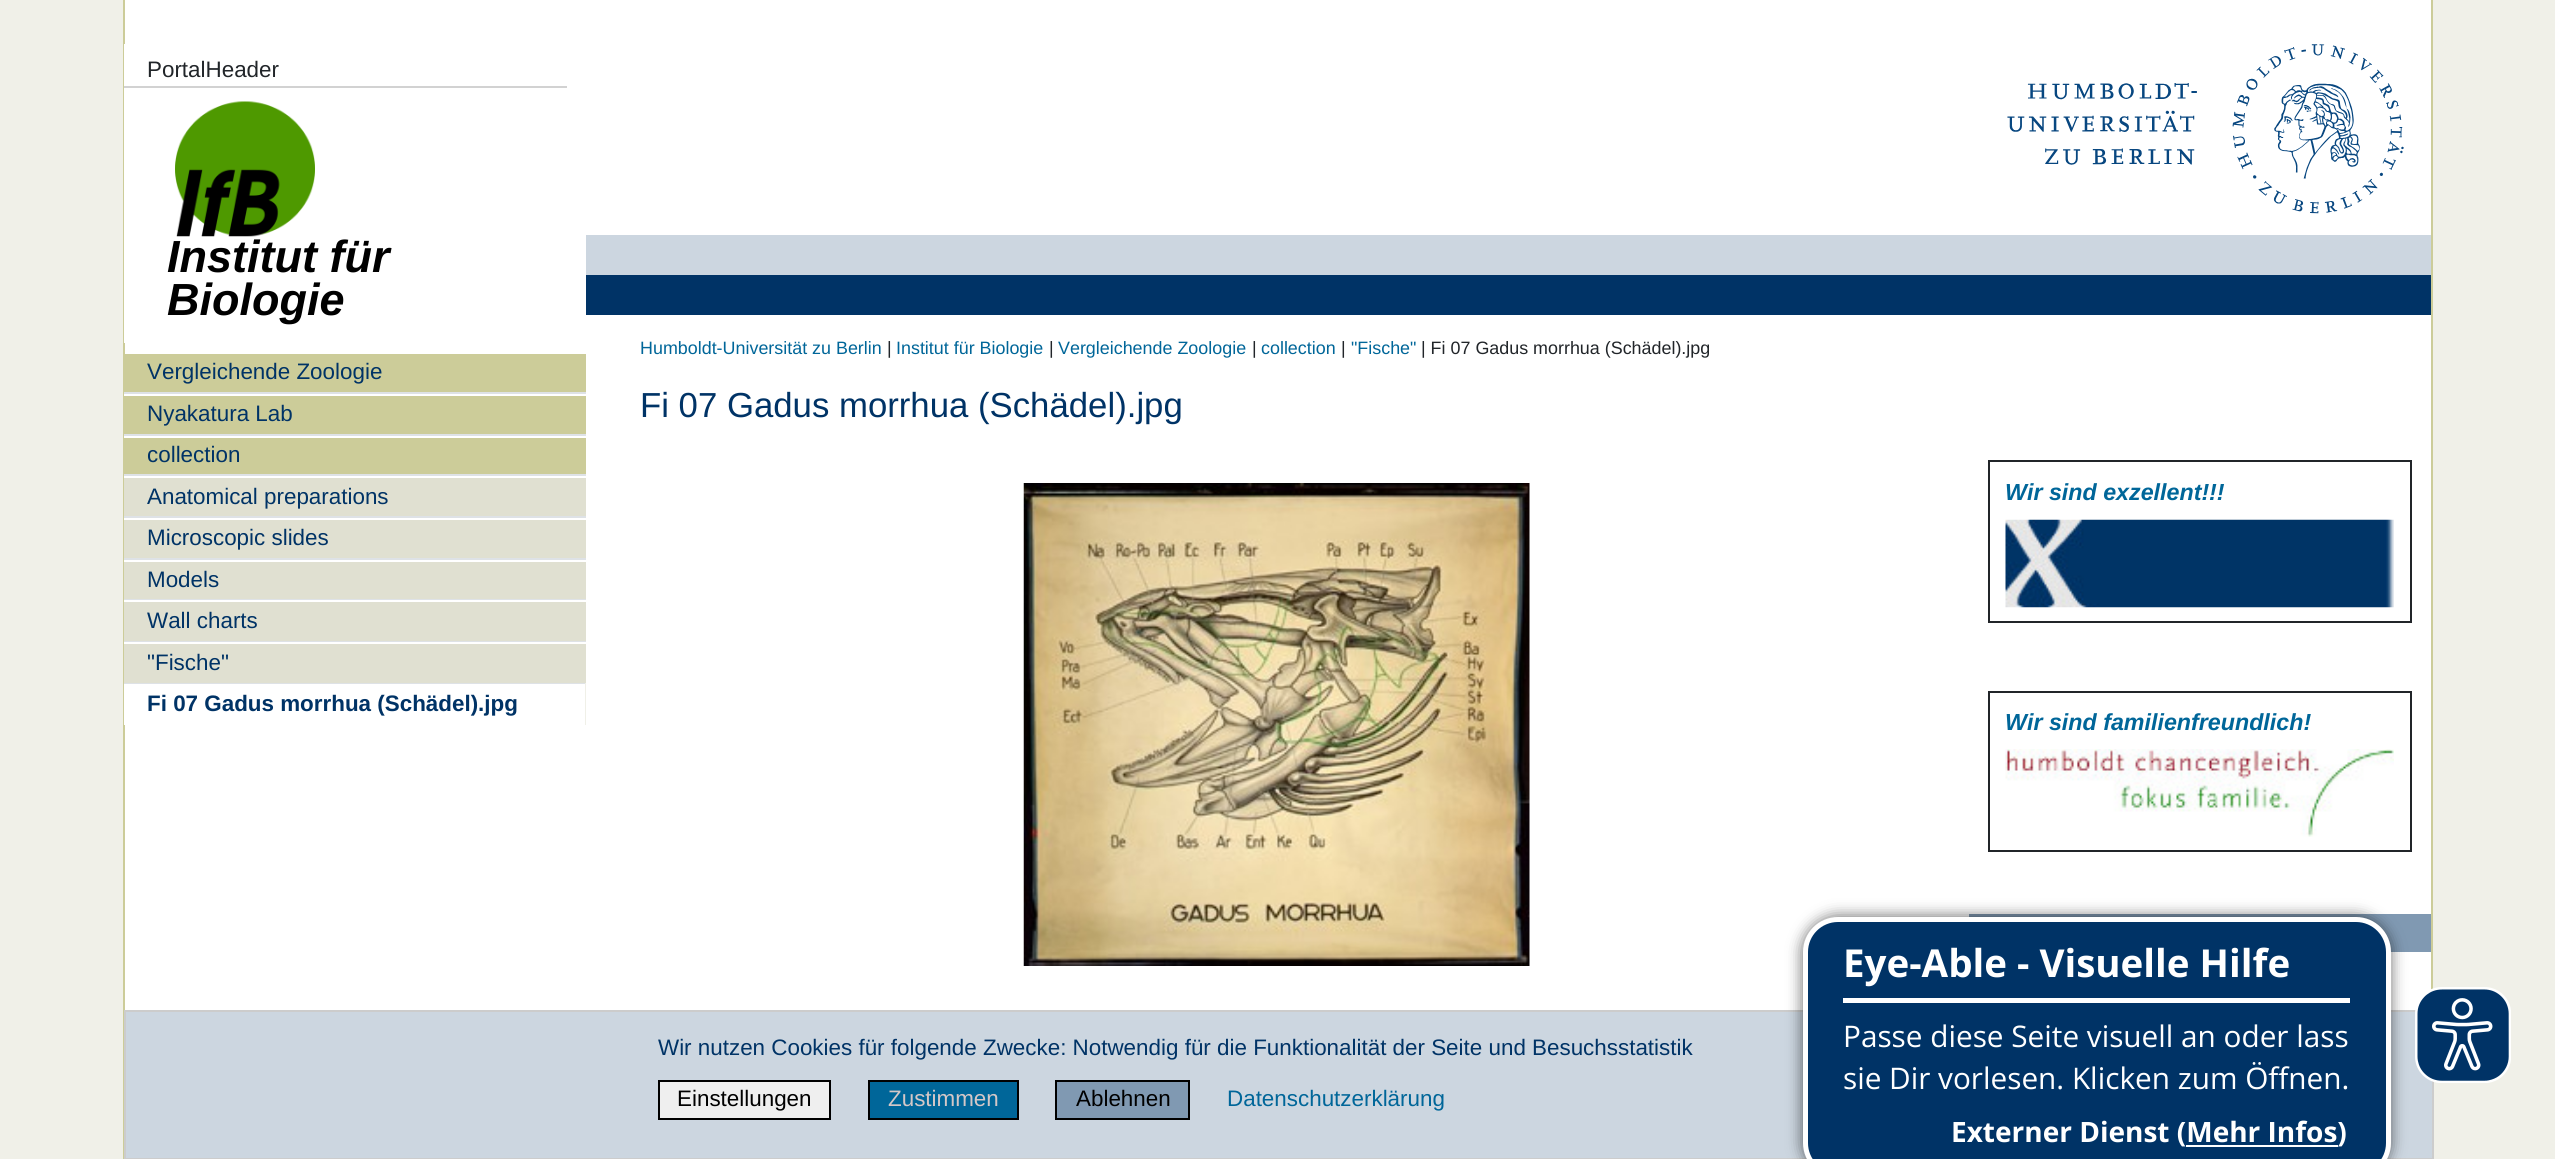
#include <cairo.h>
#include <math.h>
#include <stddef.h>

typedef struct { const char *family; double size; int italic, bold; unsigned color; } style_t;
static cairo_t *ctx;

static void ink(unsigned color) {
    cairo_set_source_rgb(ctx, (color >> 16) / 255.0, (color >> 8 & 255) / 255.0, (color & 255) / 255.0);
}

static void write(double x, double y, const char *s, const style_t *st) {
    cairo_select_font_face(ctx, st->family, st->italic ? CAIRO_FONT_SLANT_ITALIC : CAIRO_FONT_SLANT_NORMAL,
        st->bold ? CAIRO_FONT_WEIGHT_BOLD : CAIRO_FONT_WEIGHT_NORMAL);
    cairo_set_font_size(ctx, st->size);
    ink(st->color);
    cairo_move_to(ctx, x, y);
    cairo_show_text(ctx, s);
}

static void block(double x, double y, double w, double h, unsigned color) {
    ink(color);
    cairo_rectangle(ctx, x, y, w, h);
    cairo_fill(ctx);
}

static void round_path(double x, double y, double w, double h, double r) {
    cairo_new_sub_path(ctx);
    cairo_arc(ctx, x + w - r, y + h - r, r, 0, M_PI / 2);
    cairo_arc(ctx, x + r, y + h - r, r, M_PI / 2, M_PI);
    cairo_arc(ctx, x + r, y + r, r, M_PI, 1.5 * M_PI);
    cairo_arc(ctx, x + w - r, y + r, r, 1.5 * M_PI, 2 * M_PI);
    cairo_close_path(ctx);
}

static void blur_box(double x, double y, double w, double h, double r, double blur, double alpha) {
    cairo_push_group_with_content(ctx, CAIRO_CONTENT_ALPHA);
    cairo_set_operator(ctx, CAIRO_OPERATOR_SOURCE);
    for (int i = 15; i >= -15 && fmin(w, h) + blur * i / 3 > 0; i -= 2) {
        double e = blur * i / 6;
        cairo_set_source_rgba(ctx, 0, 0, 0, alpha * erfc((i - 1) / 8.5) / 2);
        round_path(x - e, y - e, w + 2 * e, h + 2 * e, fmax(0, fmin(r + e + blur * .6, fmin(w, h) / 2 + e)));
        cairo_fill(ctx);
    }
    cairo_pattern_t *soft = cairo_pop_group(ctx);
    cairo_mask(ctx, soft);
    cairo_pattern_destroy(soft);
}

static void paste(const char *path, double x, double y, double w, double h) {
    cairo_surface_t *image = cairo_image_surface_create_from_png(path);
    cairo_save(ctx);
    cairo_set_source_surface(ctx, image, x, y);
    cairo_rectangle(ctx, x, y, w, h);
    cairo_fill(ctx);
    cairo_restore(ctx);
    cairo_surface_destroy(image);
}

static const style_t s1 = {"Liberation Sans", 22.4, 0, 0, 0x212529};
static const style_t s2 = {"Liberation Sans", 45, 1, 1, 0x000000};
static const style_t s3 = {"Liberation Sans", 22.4, 0, 0, 0x003366};
static const style_t s4 = {"Liberation Sans", 22.4, 0, 1, 0x003366};
static const style_t s5 = {"Liberation Sans", 17.9, 0, 0, 0x006699};
static const style_t s6 = {"Liberation Sans", 17.9, 0, 0, 0x212529};
static const style_t s7 = {"Liberation Sans", 34.75, 0, 0, 0x003366};
static const style_t s8 = {"Liberation Sans", 23.25, 1, 1, 0x006699};
static const style_t s9 = {"Liberation Sans", 22.4, 0, 0, 0x000000};
static const style_t s10 = {"Liberation Sans", 22.4, 0, 0, 0xd5c7c7};
static const style_t s11 = {"Liberation Sans", 22.4, 0, 0, 0x006699};
static const style_t s12 = {"Open Sans", 38.5, 0, 1, 0xffffff};
static const style_t s13 = {"Open Sans", 29.75, 0, 0, 0xffffff};
static const style_t s14 = {"Open Sans", 28, 0, 1, 0xffffff};

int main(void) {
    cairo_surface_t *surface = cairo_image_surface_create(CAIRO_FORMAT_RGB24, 2555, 1159);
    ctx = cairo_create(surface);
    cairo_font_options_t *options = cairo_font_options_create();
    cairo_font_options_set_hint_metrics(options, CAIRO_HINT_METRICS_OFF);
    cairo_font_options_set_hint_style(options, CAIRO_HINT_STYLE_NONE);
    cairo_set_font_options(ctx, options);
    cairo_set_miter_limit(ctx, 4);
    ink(0xf0f0e8);
    cairo_paint(ctx);
    block(125, 0, 2306, 1010, 0xffffff);
    paste("pic1.png", 2007, 44, 397, 170);
    block(2431, 0, 2, 990, 0xcccc99);
    block(123, 0, 2, 1159, 0xcccc99);
    block(124, 44, 1, 299, 0xffffff);
    block(124, 86, 443, 2, 0xd2d2d2);
    write(147, 77, "PortalHeader", &s1);
    paste("pic2.png", 175, 101, 140, 136);
    write(167, 272, "Institut für", &s2);
    write(167, 315, "Biologie", &s2);
    block(125, 354, 461, 38, 0xcccc99);
    write(147, 379, "Vergleichende Zoologie", &s3);
    block(125, 396, 461, 38, 0xcccc99);
    block(124, 392, 462, 2, 0xdee2e6);
    block(124, 394, 1, 2, 0xffffff);
    write(147, 421, "Nyakatura Lab", &s3);
    block(125, 438, 461, 36, 0xcccc99);
    block(124, 434, 462, 2, 0xdee2e6);
    block(124, 436, 1, 2, 0xffffff);
    write(147, 462, "collection", &s3);
    block(124, 478, 462, 38, 0xe0e0d1);
    block(124, 474, 462, 2, 0xdee2e6);
    block(124, 476, 1, 2, 0xffffff);
    write(147, 504, "Anatomical preparations", &s3);
    block(124, 520, 462, 38, 0xe0e0d1);
    block(124, 516, 462, 2, 0xdee2e6);
    block(124, 518, 1, 2, 0xffffff);
    write(147, 545, "Microscopic slides", &s3);
    block(124, 562, 462, 37, 0xe0e0d1);
    block(124, 558, 462, 2, 0xdee2e6);
    block(124, 560, 1, 2, 0xffffff);
    write(147, 587, "Models", &s3);
    block(124, 602, 462, 39, 0xe0e0d1);
    block(124, 599, 462, 1, 0xdee2e6);
    block(124, 600, 1, 2, 0xffffff);
    write(147, 628, "Wall charts", &s3);
    block(124, 644, 462, 39, 0xe0e0d1);
    block(124, 641, 462, 1, 0xdee2e6);
    block(124, 642, 1, 2, 0xffffff);
    write(147, 670, "\"Fische\"", &s3);
    block(124, 683, 462, 1, 0xdee2e6);
    block(585, 683, 1, 42, 0xf0f0e8);
    block(124, 684, 1, 41, 0xffffff);
    write(147, 711, "Fi 07 Gadus morrhua (Schädel).jpg", &s4);
    block(586, 235, 1845, 40, 0xccd6e0);
    block(586, 275, 1845, 40, 0x003366);
    write(640, 354, "Humboldt-Universität zu Berlin", &s5);
    write(887, 354, "|", &s6);
    write(896, 354, "Institut für Biologie", &s5);
    write(1049, 354, "|", &s6);
    write(1058, 354, "Vergleichende Zoologie", &s5);
    write(1252, 354, "|", &s6);
    write(1261, 354, "collection", &s5);
    write(1341, 354, "|", &s6);
    write(1351, 354, "\"Fische\"", &s5);
    write(1421, 354, "| Fi 07 Gadus morrhua (Schädel).jpg", &s6);
    write(640, 417, "Fi 07 Gadus morrhua (Schädel).jpg", &s7);
    paste("pic3.png", 1023, 483, 507, 483);
    cairo_rectangle(ctx, 1989, 461, 422, 161);
    ink(0x212529);
    cairo_stroke(ctx);
    write(2005, 500, "Wir sind exzellent!!!", &s8);
    paste("pic4.png", 2005, 519, 389, 89);
    cairo_rectangle(ctx, 1989, 692, 422, 159);
    ink(0x212529);
    cairo_stroke(ctx);
    write(2005, 730, "Wir sind familienfreundlich!", &s8);
    paste("pic5.png", 2005, 749, 389, 88);
    block(1969, 914, 462, 38, 0x8099b2);
    ink(0xccd6e0);
    cairo_rectangle(ctx, 125, 1011, 2308, 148);
    cairo_fill_preserve(ctx);
    ink(0xcccccc);
    cairo_stroke(ctx);
    write(658, 1055, "Wir nutzen Cookies für folgende Zwecke: Notwendig für die Funktionalität der Seite und Besuchsstatistik", &s3);
    ink(0xefefef);
    cairo_rectangle(ctx, 659, 1081, 171, 38);
    cairo_fill_preserve(ctx);
    ink(0x000000);
    cairo_stroke(ctx);
    write(677, 1106, "Einstellungen", &s9);
    ink(0x006699);
    cairo_rectangle(ctx, 869, 1081, 149, 38);
    cairo_fill_preserve(ctx);
    ink(0x000000);
    cairo_stroke(ctx);
    write(888, 1106, "Zustimmen", &s10);
    ink(0x8099b2);
    cairo_rectangle(ctx, 1056, 1081, 133, 38);
    cairo_fill_preserve(ctx);
    ink(0x000000);
    cairo_stroke(ctx);
    write(1076, 1106, "Ablehnen", &s9);
    write(1227, 1106, "Datenschutzerklärung", &s11);
    ink(0x000000);
    blur_box(1801, 915, 591, 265, 37, 7, 0.5);
    ink(0x003366);
    round_path(1805.5, 919.5, 583, 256, 32.5);
    cairo_fill_preserve(ctx);
    ink(0xffffff);
    cairo_set_line_width(ctx, 5);
    cairo_stroke(ctx);
    block(1843, 998, 507, 5, 0xffffff);
    write(1843, 977, "Eye-Able - Visuelle Hilfe", &s12);
    write(1843, 1047, "Passe diese Seite visuell an oder lass", &s13);
    write(1843, 1089, "sie Dir vorlesen. Klicken zum Öffnen.", &s13);
    write(1951, 1142, "Externer Dienst (Mehr Infos)", &s14);
    block(2186, 1145, 152, 2, 0xffffff);
    paste("pic6.png", 2415, 987, 96, 96);
    cairo_surface_write_to_png(surface, "screenshot.png");
    cairo_font_options_destroy(options);
    cairo_destroy(ctx);
    cairo_surface_destroy(surface);
    return 0;
}
